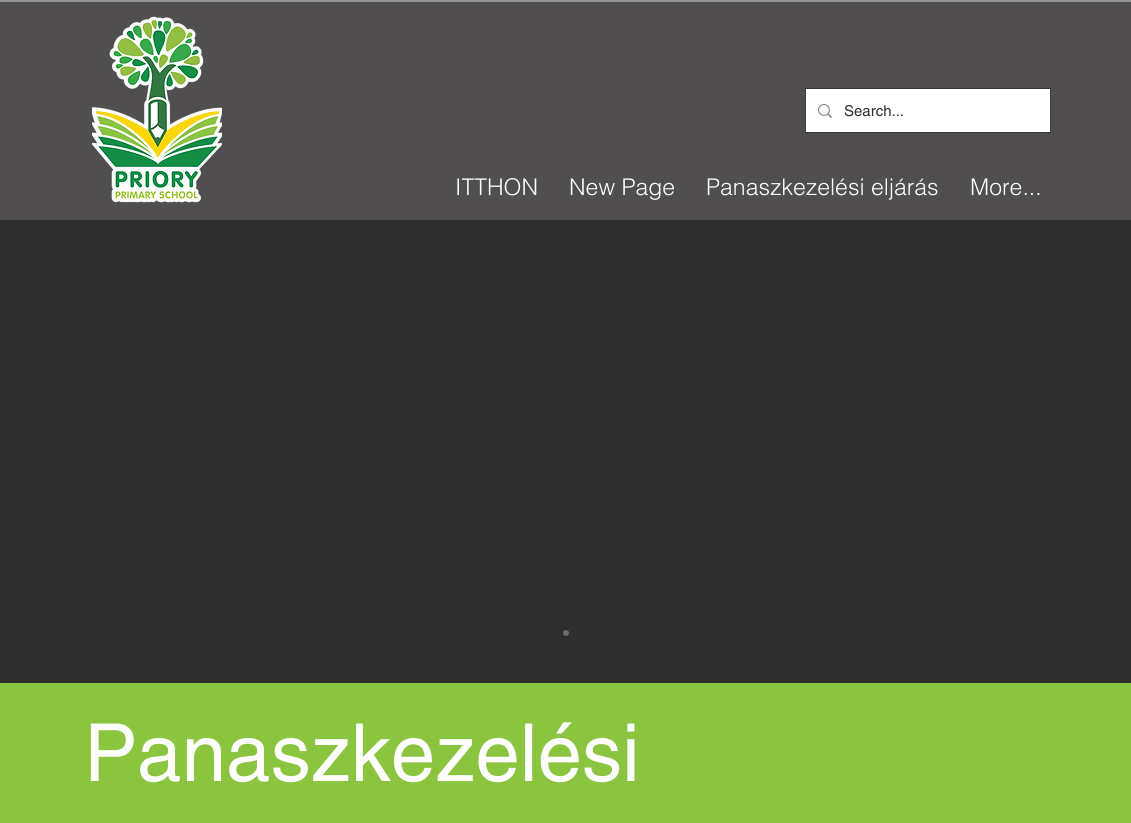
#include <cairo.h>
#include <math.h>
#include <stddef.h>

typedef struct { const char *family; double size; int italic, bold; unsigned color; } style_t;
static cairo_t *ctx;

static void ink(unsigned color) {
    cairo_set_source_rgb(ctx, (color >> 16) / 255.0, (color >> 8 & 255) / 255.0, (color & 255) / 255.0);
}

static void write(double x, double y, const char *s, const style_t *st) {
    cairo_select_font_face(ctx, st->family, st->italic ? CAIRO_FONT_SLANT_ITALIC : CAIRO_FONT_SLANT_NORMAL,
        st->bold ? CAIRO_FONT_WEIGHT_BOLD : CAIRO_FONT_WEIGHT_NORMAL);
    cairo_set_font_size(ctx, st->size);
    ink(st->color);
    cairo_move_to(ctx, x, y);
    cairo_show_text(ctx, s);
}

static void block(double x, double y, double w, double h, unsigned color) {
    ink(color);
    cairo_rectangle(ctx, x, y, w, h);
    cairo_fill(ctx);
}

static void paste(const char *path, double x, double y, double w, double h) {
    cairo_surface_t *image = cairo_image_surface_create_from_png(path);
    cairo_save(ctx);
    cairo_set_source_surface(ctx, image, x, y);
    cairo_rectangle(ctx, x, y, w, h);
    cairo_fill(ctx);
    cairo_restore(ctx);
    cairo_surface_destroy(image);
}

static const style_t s1 = {"helvetica", 15, 0, 0, 0x2f2e2e};
static const style_t s2 = {"helvetica Light", 23, 0, 0, 0xffffff};
static const style_t s3 = {"helvetica", 80, 0, 0, 0xffffff};

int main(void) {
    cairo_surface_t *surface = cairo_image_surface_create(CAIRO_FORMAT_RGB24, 1131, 823);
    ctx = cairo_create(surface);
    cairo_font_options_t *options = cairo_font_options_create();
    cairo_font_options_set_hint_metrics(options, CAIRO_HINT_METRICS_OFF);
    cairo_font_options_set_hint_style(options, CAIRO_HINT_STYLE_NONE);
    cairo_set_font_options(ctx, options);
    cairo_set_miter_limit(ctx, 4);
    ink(0x949393);
    cairo_paint(ctx);
    block(0, 2, 1131, 218, 0x504e4e);
    paste("pic1.png", 92, 16, 130, 187);
    cairo_rectangle(ctx, 805.5, 88.5, 245, 44);
    ink(0x3c3b3b);
    cairo_set_line_width(ctx, 1);
    cairo_stroke(ctx);
    block(806, 89, 244, 43, 0xffffff);
    paste("pic2.png", 818, 104, 14, 14);
    write(844, 116, "Search...", &s1);
    write(455, 195, "ITTHON", &s2);
    write(569, 195, "New Page", &s2);
    write(706, 195, "Panaszkezelési eljárás", &s2);
    write(970, 195, "More...", &s2);
    block(0, 220, 1131, 463, 0x2f2e2e);
    ink(0x6d6d6d);
    cairo_new_path(ctx);
    cairo_arc(ctx, 566, 633, 3, 0, 2 * M_PI);
    cairo_fill(ctx);
    block(0, 683, 1131, 140, 0x8bc53f);
    write(84, 781, "Panaszkezelési", &s3);
    cairo_surface_write_to_png(surface, "screenshot.png");
    cairo_font_options_destroy(options);
    cairo_destroy(ctx);
    cairo_surface_destroy(surface);
    return 0;
}
